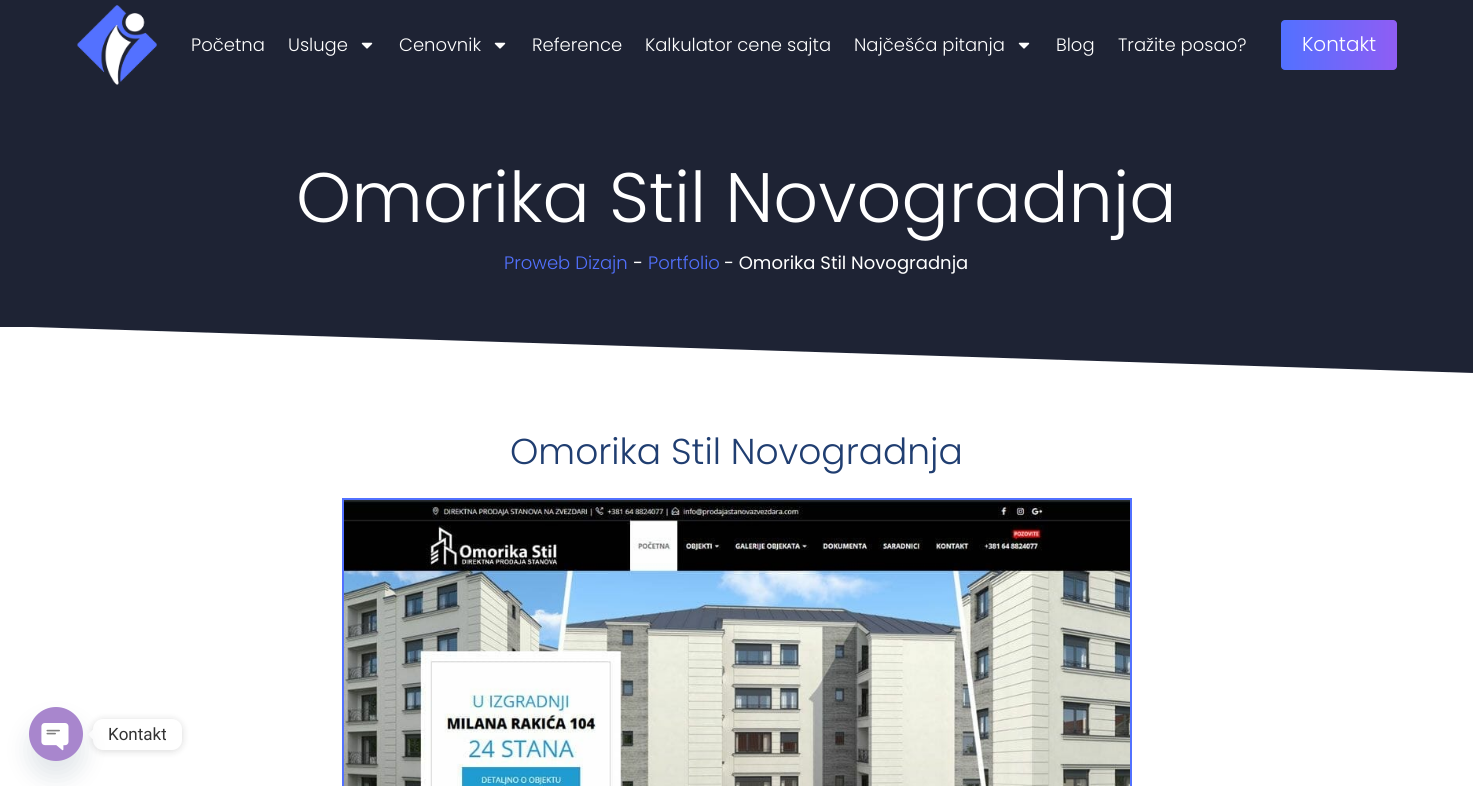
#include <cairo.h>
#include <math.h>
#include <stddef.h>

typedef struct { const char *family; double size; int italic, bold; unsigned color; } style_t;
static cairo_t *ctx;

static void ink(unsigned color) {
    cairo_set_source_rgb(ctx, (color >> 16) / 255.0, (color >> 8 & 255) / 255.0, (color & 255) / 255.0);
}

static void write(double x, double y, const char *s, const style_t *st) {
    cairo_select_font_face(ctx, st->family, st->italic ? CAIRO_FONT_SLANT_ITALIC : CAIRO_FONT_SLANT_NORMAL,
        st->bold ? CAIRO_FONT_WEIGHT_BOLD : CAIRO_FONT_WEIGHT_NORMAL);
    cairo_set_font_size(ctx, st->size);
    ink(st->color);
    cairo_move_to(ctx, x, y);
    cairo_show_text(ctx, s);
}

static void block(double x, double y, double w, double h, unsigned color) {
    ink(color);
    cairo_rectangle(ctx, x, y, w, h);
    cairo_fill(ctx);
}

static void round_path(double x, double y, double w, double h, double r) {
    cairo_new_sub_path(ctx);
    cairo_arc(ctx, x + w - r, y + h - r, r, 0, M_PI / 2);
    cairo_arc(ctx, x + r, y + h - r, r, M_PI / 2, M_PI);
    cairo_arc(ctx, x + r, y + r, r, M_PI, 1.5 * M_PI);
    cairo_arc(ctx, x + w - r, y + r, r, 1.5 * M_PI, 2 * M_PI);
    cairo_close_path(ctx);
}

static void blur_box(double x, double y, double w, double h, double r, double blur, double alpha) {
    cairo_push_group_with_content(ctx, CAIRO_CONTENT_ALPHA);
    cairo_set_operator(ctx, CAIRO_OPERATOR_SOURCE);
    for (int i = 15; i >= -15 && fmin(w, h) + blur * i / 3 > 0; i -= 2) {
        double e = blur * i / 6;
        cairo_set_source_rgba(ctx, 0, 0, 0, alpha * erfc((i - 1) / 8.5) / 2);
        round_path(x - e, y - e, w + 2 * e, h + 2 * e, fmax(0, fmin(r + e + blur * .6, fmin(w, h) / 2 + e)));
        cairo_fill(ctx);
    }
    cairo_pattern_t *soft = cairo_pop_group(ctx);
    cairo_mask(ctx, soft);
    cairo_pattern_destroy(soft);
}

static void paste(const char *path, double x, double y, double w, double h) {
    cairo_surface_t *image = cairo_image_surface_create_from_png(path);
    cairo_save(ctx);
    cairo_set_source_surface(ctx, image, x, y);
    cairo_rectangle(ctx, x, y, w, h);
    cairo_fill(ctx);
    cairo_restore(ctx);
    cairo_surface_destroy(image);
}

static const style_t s1 = {"Poppins Light", 18, 0, 0, 0xffffff};
static const style_t s2 = {"Poppins Light", 20, 0, 0, 0xffffff};
static const style_t s3 = {"Poppins Light", 70, 0, 0, 0xffffff};
static const style_t s4 = {"Poppins Light", 18, 0, 0, 0x5271ff};
static const style_t s5 = {"Poppins", 18, 0, 0, 0xffffff};
static const style_t s6 = {"Poppins Light", 36, 0, 0, 0x203e71};
static const style_t s7 = {"Roboto", 17, 0, 0, 0x333333};

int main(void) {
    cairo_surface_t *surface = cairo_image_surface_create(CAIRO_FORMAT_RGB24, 1473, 786);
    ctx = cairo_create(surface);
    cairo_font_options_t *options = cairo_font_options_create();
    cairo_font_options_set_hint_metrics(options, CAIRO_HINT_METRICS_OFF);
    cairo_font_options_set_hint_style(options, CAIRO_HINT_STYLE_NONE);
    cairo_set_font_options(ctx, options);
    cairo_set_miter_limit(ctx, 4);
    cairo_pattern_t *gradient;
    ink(0xffffff);
    cairo_paint(ctx);
    block(0, 0, 1473, 373, 0x1e2334);
    paste("pic1.png", 77, 5, 80, 80);
    write(191, 51, "Početna", &s1);
    write(288, 51, "Usluge", &s1);
    paste("pic2.png", 361, 42, 12, 7);
    write(399, 51, "Cenovnik", &s1);
    paste("pic2.png", 494, 42, 12, 7);
    write(532, 51, "Reference", &s1);
    write(645, 51, "Kalkulator cene sajta", &s1);
    write(854, 51, "Najčešća pitanja", &s1);
    paste("pic2.png", 1018, 42, 12, 7);
    write(1056, 51, "Blog", &s1);
    write(1118, 51, "Tražite posao?", &s1);
    gradient = cairo_pattern_create_linear(1281, 45, 1397, 45);
    cairo_pattern_add_color_stop_rgba(gradient, 0, 0.322, 0.443, 1, 1);
    cairo_pattern_add_color_stop_rgba(gradient, 1, 0.561, 0.365, 0.957, 1);
    cairo_set_source(ctx, gradient);
    cairo_pattern_destroy(gradient);
    round_path(1281, 20, 116, 50, 4);
    cairo_fill(ctx);
    write(1302, 51, "Kontakt", &s2);
    write(296, 222, "Omorika Stil Novogradnja", &s3);
    write(504, 269, "Proweb Dizajn", &s4);
    write(633, 269, "-", &s5);
    write(648, 269, "Portfolio", &s4);
    write(724, 269, "- Omorika Stil Novogradnja", &s5);
    cairo_save(ctx);
    cairo_rectangle(ctx, 0, 327, 1473, 50);
    cairo_clip(ctx);
    cairo_new_path(ctx);
    cairo_move_to(ctx, 1473, 373);
    cairo_line_to(ctx, 1473, 376);
    cairo_line_to(ctx, -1, 376);
    cairo_line_to(ctx, -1, 326);
    cairo_close_path(ctx);
    cairo_fill(ctx);
    cairo_restore(ctx);
    write(510, 464, "Omorika Stil Novogradnja", &s6);
    cairo_rectangle(ctx, 343, 499, 788, 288);
    ink(0x5271ff);
    cairo_stroke(ctx);
    paste("pic3.png", 344, 500, 786, 286);
    ink(0x000000);
    blur_box(93, 720, 89, 31, 10, 4, 0.15);
    ink(0xffffff);
    round_path(93, 719, 89, 31, 10);
    cairo_fill(ctx);
    cairo_new_path(ctx);
    cairo_move_to(ctx, 93, 729.5);
    cairo_line_to(ctx, 93, 739.5);
    cairo_line_to(ctx, 88, 734.5);
    cairo_close_path(ctx);
    cairo_fill(ctx);
    ink(0x49687e);
    blur_box(29, 723, 54, 54, 27, 12, 0.16);
    paste("pic4.png", 29, 707, 54, 54);
    write(108, 740, "Kontakt", &s7);
    cairo_surface_write_to_png(surface, "screenshot.png");
    cairo_font_options_destroy(options);
    cairo_destroy(ctx);
    cairo_surface_destroy(surface);
    return 0;
}
